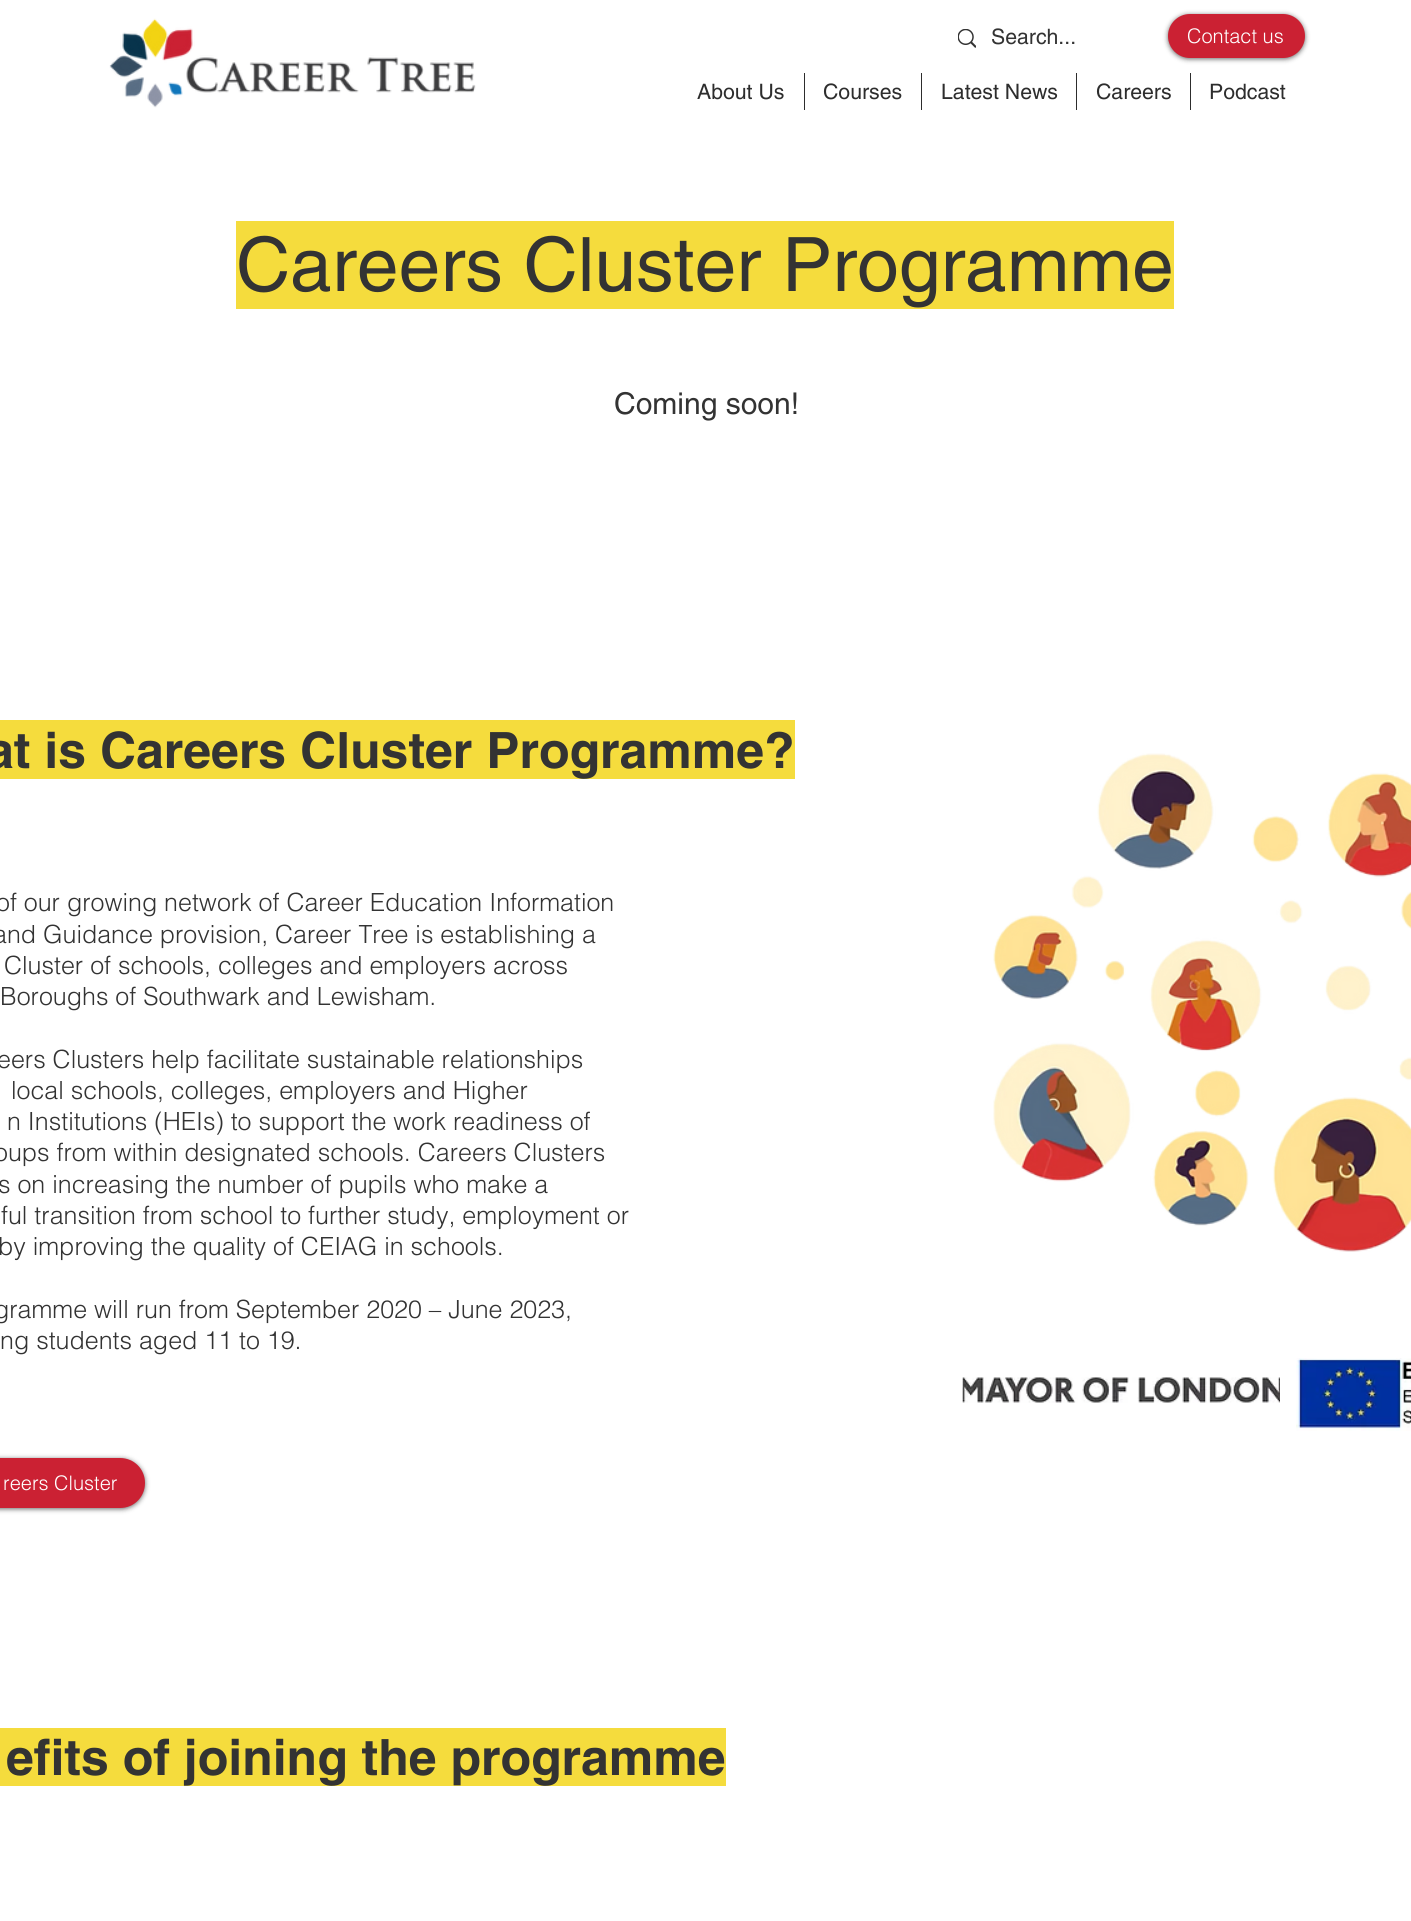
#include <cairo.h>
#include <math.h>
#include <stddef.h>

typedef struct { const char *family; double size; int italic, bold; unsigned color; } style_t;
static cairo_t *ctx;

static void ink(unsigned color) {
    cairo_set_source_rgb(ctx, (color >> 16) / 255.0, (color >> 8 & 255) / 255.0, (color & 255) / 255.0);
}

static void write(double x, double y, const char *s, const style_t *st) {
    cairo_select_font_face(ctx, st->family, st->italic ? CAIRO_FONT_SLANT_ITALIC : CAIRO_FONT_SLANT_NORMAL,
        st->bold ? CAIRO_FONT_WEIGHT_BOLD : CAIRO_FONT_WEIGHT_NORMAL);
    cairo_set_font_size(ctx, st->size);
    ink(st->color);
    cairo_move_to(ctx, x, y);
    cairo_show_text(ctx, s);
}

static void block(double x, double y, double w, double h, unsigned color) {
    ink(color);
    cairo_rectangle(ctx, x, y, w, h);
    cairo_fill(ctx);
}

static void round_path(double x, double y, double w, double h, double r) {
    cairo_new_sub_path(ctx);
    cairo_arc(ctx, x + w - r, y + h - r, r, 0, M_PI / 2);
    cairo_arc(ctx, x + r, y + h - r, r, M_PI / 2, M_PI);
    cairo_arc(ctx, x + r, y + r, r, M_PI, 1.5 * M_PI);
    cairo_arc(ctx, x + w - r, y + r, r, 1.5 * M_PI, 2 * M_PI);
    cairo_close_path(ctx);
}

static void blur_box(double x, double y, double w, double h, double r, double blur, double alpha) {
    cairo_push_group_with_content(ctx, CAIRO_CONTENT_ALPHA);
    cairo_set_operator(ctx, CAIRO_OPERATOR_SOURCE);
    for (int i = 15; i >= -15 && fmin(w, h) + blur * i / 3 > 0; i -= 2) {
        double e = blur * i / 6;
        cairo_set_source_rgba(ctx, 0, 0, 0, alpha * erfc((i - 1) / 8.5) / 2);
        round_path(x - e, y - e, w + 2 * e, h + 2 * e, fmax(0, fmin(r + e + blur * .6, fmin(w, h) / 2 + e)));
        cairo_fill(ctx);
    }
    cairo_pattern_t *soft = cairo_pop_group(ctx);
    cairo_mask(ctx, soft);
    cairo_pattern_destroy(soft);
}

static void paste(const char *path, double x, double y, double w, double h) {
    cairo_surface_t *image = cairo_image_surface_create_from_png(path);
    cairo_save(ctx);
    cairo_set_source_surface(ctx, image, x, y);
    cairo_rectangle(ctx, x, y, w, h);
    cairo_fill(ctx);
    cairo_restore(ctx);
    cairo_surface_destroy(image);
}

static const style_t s1 = {"helvetica", 21.25, 0, 0, 0x333333};
static const style_t s2 = {"helvetica Light", 20, 0, 0, 0xffffff};
static const style_t s3 = {"helvetica", 21.25, 0, 0, 0x2d2d2d};
static const style_t s4 = {"helvetica", 75, 0, 0, 0x333333};
static const style_t s5 = {"helvetica", 30, 0, 0, 0x333333};
static const style_t s6 = {"helvetica", 50, 0, 1, 0x333333};
static const style_t s7 = {"helvetica Light", 25, 0, 0, 0x333333};

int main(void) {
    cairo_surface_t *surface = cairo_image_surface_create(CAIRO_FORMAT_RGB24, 1411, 1921);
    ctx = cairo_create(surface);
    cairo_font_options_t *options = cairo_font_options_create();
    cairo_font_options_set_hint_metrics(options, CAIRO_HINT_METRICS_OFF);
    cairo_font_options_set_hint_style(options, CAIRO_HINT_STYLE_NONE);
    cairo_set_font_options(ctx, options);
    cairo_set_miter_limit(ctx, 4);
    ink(0xffffff);
    cairo_paint(ctx);
    paste("pic1.png", 109, 18, 367, 90);
    paste("pic2.png", 958, 29, 18, 19);
    write(991, 44, "Search...", &s1);
    ink(0x000000);
    blur_box(1168, 15, 137, 44, 22, 2.5, 0.6);
    ink(0xcb2133);
    round_path(1168, 14, 137, 44, 22);
    cairo_fill(ctx);
    write(1187, 43, "Contact us", &s2);
    write(697, 99, "About Us", &s3);
    block(804, 73, 1, 37, 0x2d2d2d);
    write(823, 99, "Courses", &s3);
    block(921, 73, 1, 37, 0x2d2d2d);
    write(941, 99, "Latest News", &s3);
    block(1076, 73, 1, 37, 0x2d2d2d);
    write(1096, 99, "Careers", &s3);
    block(1190, 73, 1, 37, 0x2d2d2d);
    write(1209, 99, "Podcast", &s3);
    block(236, 221, 938, 88, 0xf5dc3d);
    write(236, 291, "Careers Cluster Programme", &s4);
    write(614, 414, "Coming soon!", &s5);
    block(0, 720, 795, 59, 0xf5dc3d);
    write(-14, 768, "at is Careers Cluster Programme?", &s6);
    paste("pic3.png", 993, 753, 418, 499);
    write(-4, 911, "of our growing network of Career Education Information", &s7);
    write(-7, 943, "and Guidance provision, Career Tree is establishing a", &s7);
    write(4, 974, "Cluster of schools, colleges and employers across", &s7);
    write(0, 1005, "Boroughs of Southwark and Lewisham.", &s7);
    write(-3, 1068, "eers Clusters help facilitate sustainable relationships", &s7);
    write(11, 1099, "local schools, colleges, employers and Higher", &s7);
    write(7, 1130, "n Institutions (HEIs) to support the work readiness of", &s7);
    write(-6, 1161, "oups from within designated schools. Careers Clusters", &s7);
    write(-2, 1193, "s on increasing the number of pupils who make a", &s7);
    write(1, 1224, "ful transition from school to further study, employment or", &s7);
    write(-2, 1255, "by improving the quality of CEIAG in schools.", &s7);
    write(-6, 1318, "gramme will run from September 2020 – June 2023,", &s7);
    write(0, 1349, "ng students aged 11 to 19.", &s7);
    paste("pic4.png", 962, 1377, 318, 26);
    paste("pic5.png", 1296, 1358, 115, 73);
    ink(0x000000);
    blur_box(-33, 1459, 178, 50, 25, 2.5, 0.6);
    ink(0xcb2133);
    cairo_new_path(ctx);
    cairo_move_to(ctx, 0, 1458);
    cairo_line_to(ctx, 120, 1458);
    cairo_curve_to(ctx, 134, 1458, 145, 1469, 145, 1483);
    cairo_curve_to(ctx, 145, 1497, 134, 1508, 120, 1508);
    cairo_line_to(ctx, 0, 1508);
    cairo_close_path(ctx);
    cairo_fill(ctx);
    write(3, 1490, "reers Cluster", &s2);
    block(0, 1728, 726, 58, 0xf5dc3d);
    write(6, 1775, "efits of joining the programme", &s6);
    cairo_surface_write_to_png(surface, "screenshot.png");
    cairo_font_options_destroy(options);
    cairo_destroy(ctx);
    cairo_surface_destroy(surface);
    return 0;
}
